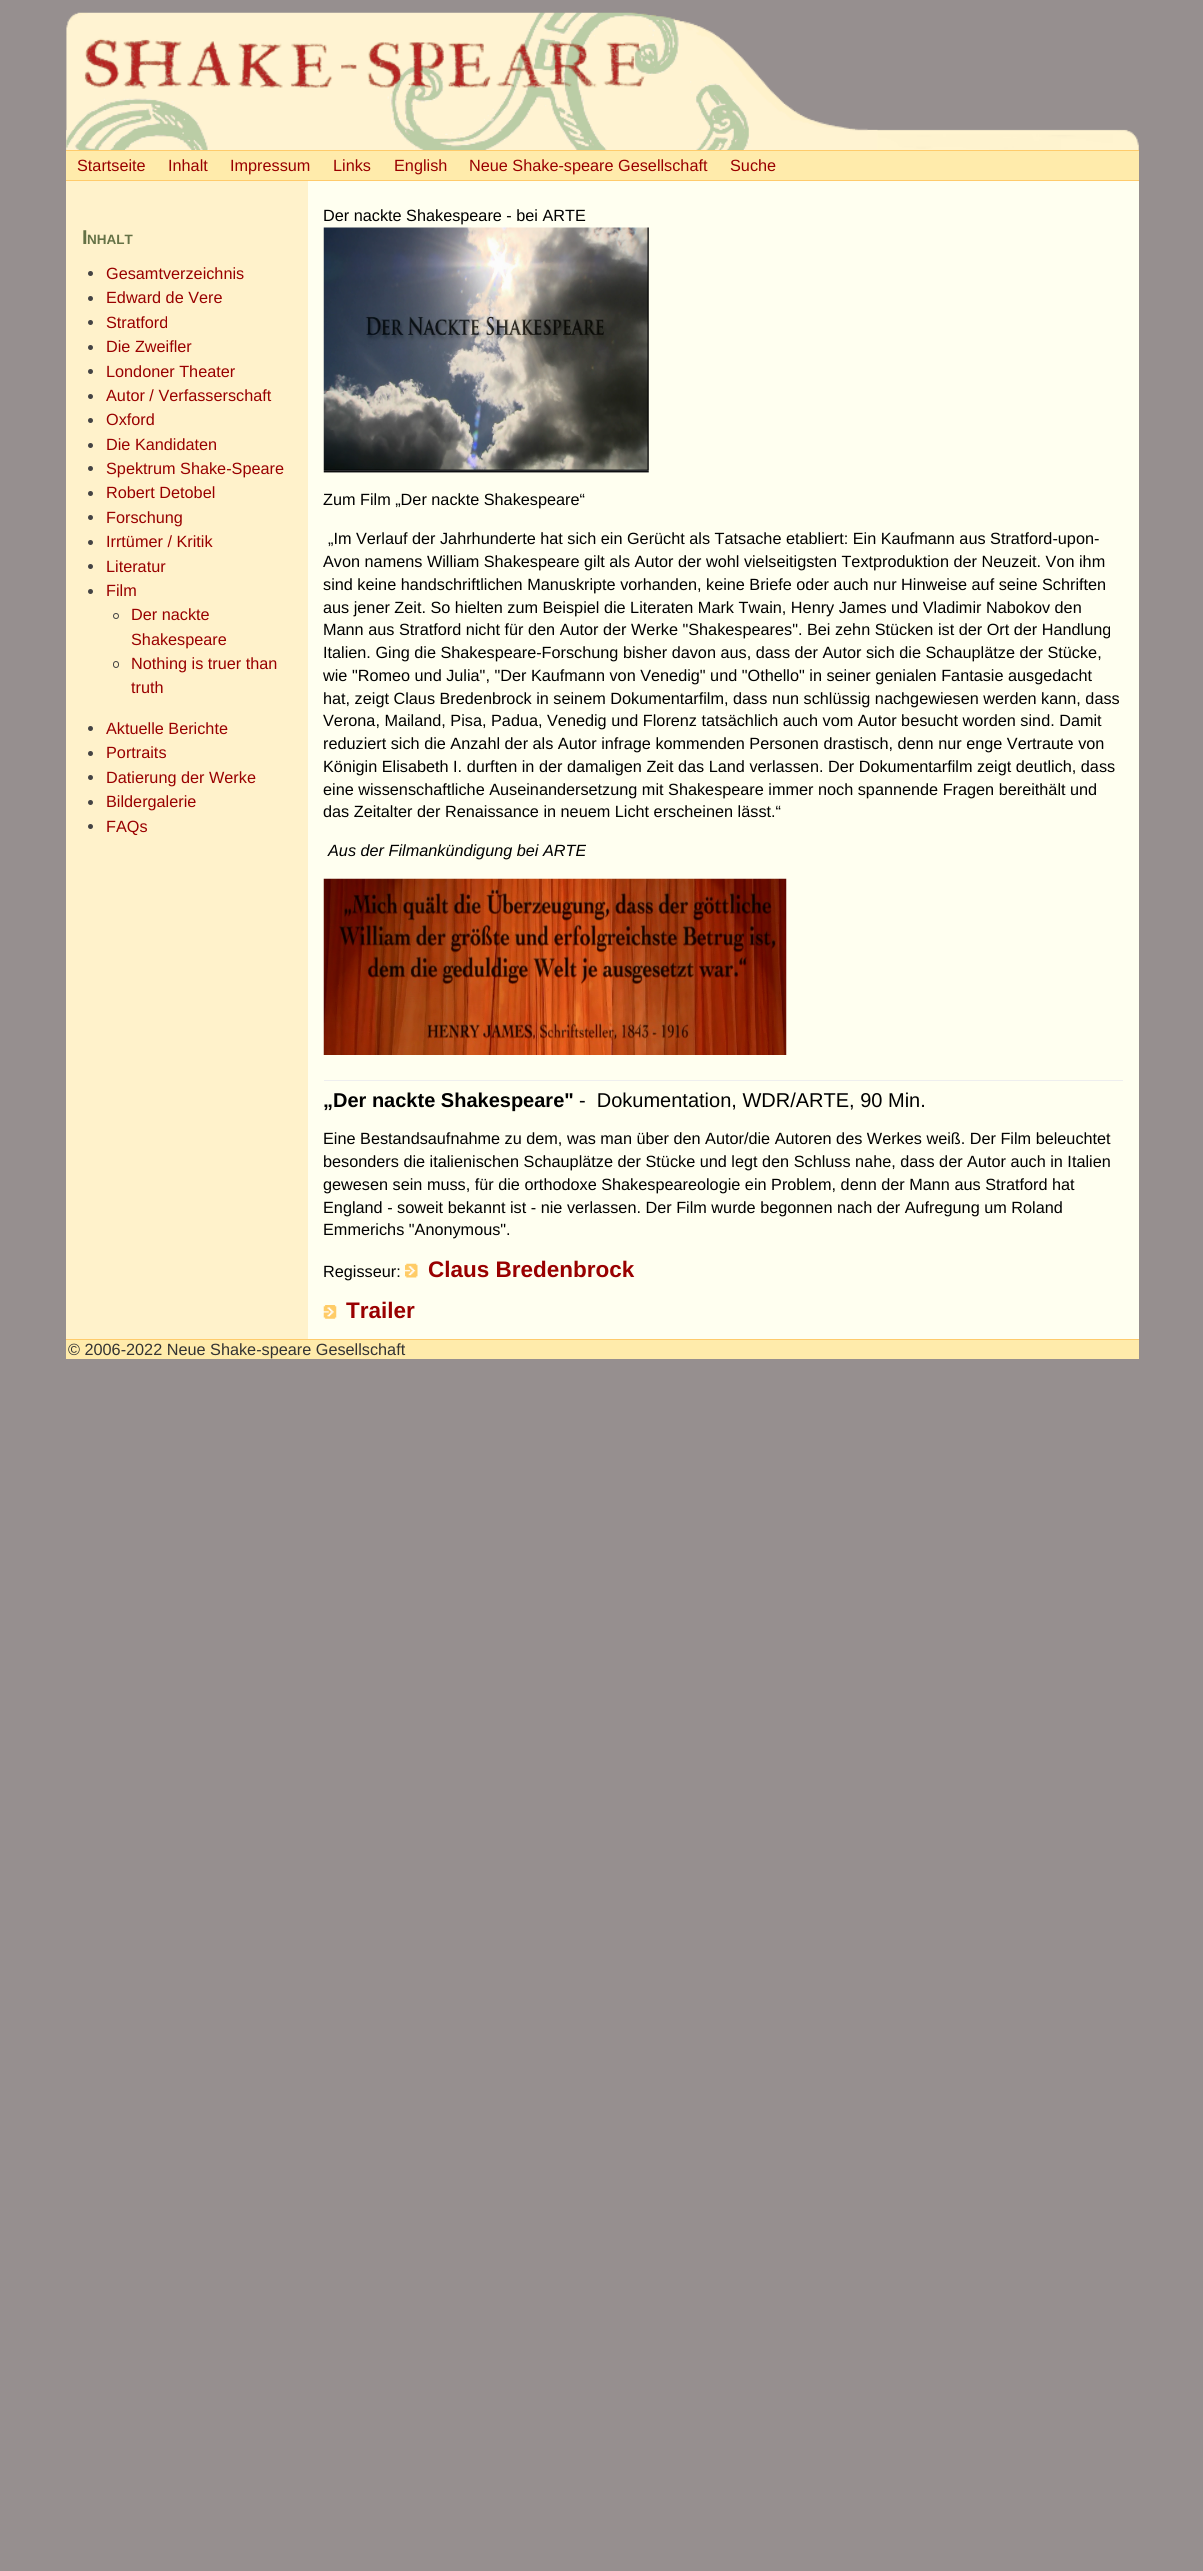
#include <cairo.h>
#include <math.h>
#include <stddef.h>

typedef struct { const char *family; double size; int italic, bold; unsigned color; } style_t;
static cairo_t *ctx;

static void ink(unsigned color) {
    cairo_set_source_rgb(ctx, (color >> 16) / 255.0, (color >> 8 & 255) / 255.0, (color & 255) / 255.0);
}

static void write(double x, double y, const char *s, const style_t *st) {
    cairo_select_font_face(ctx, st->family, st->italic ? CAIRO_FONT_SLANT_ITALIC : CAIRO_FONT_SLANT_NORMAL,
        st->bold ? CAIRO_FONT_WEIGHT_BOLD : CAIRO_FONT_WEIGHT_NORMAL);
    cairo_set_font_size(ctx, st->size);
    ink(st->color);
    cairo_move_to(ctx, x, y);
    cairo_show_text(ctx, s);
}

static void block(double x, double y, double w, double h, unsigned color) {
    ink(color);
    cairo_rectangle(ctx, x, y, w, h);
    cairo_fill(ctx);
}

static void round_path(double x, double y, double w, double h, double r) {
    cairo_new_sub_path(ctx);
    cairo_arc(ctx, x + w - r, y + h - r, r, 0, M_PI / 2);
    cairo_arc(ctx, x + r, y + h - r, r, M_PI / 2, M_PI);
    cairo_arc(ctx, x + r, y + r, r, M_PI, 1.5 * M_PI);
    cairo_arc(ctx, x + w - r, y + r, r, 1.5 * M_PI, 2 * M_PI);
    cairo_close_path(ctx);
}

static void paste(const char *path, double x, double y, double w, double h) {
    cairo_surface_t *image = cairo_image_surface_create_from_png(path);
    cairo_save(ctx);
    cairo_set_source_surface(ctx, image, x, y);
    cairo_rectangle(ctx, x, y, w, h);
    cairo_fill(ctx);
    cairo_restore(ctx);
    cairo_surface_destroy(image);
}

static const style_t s1 = {"Liberation Sans", 16.25, 0, 0, 0x990000};
static const style_t s2 = {"Liberation Sans", 20, 0, 1, 0x657246};
static const style_t s3 = {"Liberation Sans", 13.5, 0, 1, 0x657246};
static const style_t s4 = {"Liberation Sans", 16.25, 0, 0, 0x000000};
static const style_t s5 = {"Liberation Sans", 16.25, 1, 0, 0x000000};
static const style_t s6 = {"Liberation Sans", 20, 0, 1, 0x000000};
static const style_t s7 = {"Liberation Sans", 20, 0, 0, 0x000000};
static const style_t s8 = {"Liberation Sans", 22.5, 0, 1, 0x990000};
static const style_t s9 = {"Liberation Sans", 16.25, 0, 0, 0x333333};

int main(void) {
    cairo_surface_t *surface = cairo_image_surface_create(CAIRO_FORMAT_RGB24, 1203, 2571);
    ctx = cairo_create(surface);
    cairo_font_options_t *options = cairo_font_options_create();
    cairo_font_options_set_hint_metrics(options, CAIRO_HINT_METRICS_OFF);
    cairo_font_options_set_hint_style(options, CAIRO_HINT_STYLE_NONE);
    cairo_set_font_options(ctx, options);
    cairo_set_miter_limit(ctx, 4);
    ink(0x968f8f);
    cairo_paint(ctx);
    paste("pic1.png", 66, 129, 1073, 21);
    paste("pic2.png", 66, 12, 812, 138);
    block(66, 151, 1073, 29, 0xffebab);
    block(66, 150, 1073, 1, 0xffcb6b);
    block(66, 180, 1073, 1, 0xffcb6b);
    write(77, 171, "Startseite", &s1);
    write(168, 171, "Inhalt", &s1);
    write(230, 171, "Impressum", &s1);
    write(333, 171, "Links", &s1);
    write(394, 171, "English", &s1);
    write(469, 171, "Neue Shake-speare Gesellschaft", &s1);
    write(730, 171, "Suche", &s1);
    block(66, 181, 242, 1158, 0xfff2cb);
    write(82, 244, "I", &s2);
    write(87, 244, "NHALT", &s3);
    ink(0x444444);
    cairo_new_path(ctx);
    cairo_arc(ctx, 90.5, 273.5, 2.5, 0, 2 * M_PI);
    cairo_fill(ctx);
    write(106, 279, "Gesamtverzeichnis", &s1);
    ink(0x444444);
    cairo_new_path(ctx);
    cairo_arc(ctx, 90.5, 298.5, 2.5, 0, 2 * M_PI);
    cairo_fill(ctx);
    write(106, 303, "Edward de Vere", &s1);
    ink(0x444444);
    cairo_new_path(ctx);
    cairo_arc(ctx, 90.5, 322.5, 2.5, 0, 2 * M_PI);
    cairo_fill(ctx);
    write(106, 328, "Stratford", &s1);
    ink(0x444444);
    cairo_new_path(ctx);
    cairo_arc(ctx, 90.5, 347.5, 2.5, 0, 2 * M_PI);
    cairo_fill(ctx);
    write(106, 352, "Die Zweifler", &s1);
    ink(0x444444);
    cairo_new_path(ctx);
    cairo_arc(ctx, 90.5, 371.5, 2.5, 0, 2 * M_PI);
    cairo_fill(ctx);
    write(106, 377, "Londoner Theater", &s1);
    ink(0x444444);
    cairo_new_path(ctx);
    cairo_arc(ctx, 90.5, 396.5, 2.5, 0, 2 * M_PI);
    cairo_fill(ctx);
    write(106, 401, "Autor / Verfasserschaft", &s1);
    ink(0x444444);
    cairo_new_path(ctx);
    cairo_arc(ctx, 90.5, 420.5, 2.5, 0, 2 * M_PI);
    cairo_fill(ctx);
    write(106, 425, "Oxford", &s1);
    ink(0x444444);
    cairo_new_path(ctx);
    cairo_arc(ctx, 90.5, 445.5, 2.5, 0, 2 * M_PI);
    cairo_fill(ctx);
    write(106, 450, "Die Kandidaten", &s1);
    ink(0x444444);
    cairo_new_path(ctx);
    cairo_arc(ctx, 90.5, 468.5, 2.5, 0, 2 * M_PI);
    cairo_fill(ctx);
    write(106, 474, "Spektrum Shake-Speare", &s1);
    ink(0x444444);
    cairo_new_path(ctx);
    cairo_arc(ctx, 90.5, 493.5, 2.5, 0, 2 * M_PI);
    cairo_fill(ctx);
    write(106, 498, "Robert Detobel", &s1);
    ink(0x444444);
    cairo_new_path(ctx);
    cairo_arc(ctx, 90.5, 517.5, 2.5, 0, 2 * M_PI);
    cairo_fill(ctx);
    write(106, 523, "Forschung", &s1);
    ink(0x444444);
    cairo_new_path(ctx);
    cairo_arc(ctx, 90.5, 542.5, 2.5, 0, 2 * M_PI);
    cairo_fill(ctx);
    write(106, 547, "Irrtümer / Kritik", &s1);
    ink(0x444444);
    cairo_new_path(ctx);
    cairo_arc(ctx, 90.5, 566.5, 2.5, 0, 2 * M_PI);
    cairo_fill(ctx);
    write(106, 572, "Literatur", &s1);
    ink(0x444444);
    cairo_new_path(ctx);
    cairo_arc(ctx, 90.5, 591.5, 2.5, 0, 2 * M_PI);
    cairo_fill(ctx);
    write(106, 596, "Film", &s1);
    cairo_new_path(ctx);
    cairo_arc(ctx, 116, 616, 2.5, 0, 2 * M_PI);
    ink(0x444444);
    cairo_set_line_width(ctx, 1);
    cairo_stroke(ctx);
    write(131, 620, "Der nackte", &s1);
    write(131, 645, "Shakespeare", &s1);
    round_path(113.5, 661.5, 5, 6, 2.5);
    ink(0x444444);
    cairo_stroke(ctx);
    write(131, 669, "Nothing is truer than", &s1);
    write(131, 693, "truth", &s1);
    ink(0x444444);
    cairo_new_path(ctx);
    cairo_arc(ctx, 90.5, 728.5, 2.5, 0, 2 * M_PI);
    cairo_fill(ctx);
    write(106, 734, "Aktuelle Berichte", &s1);
    ink(0x444444);
    cairo_new_path(ctx);
    cairo_arc(ctx, 90.5, 753.5, 2.5, 0, 2 * M_PI);
    cairo_fill(ctx);
    write(106, 758, "Portraits", &s1);
    ink(0x444444);
    cairo_new_path(ctx);
    cairo_arc(ctx, 90.5, 777.5, 2.5, 0, 2 * M_PI);
    cairo_fill(ctx);
    write(106, 783, "Datierung der Werke", &s1);
    ink(0x444444);
    cairo_new_path(ctx);
    cairo_arc(ctx, 90.5, 802.5, 2.5, 0, 2 * M_PI);
    cairo_fill(ctx);
    write(106, 807, "Bildergalerie", &s1);
    ink(0x444444);
    cairo_new_path(ctx);
    cairo_arc(ctx, 90.5, 826.5, 2.5, 0, 2 * M_PI);
    cairo_fill(ctx);
    write(106, 832, "FAQs", &s1);
    block(308, 181, 831, 1158, 0xfffff0);
    write(323, 221, "Der nackte Shakespeare - bei ARTE", &s4);
    paste("pic3.png", 323, 227, 326, 246);
    write(323, 505, "Zum Film „Der nackte Shakespeare“", &s4);
    write(328, 544, "„Im Verlauf der Jahrhunderte hat sich ein Gerücht als Tatsache etabliert: Ein Kaufmann aus Stratford-upon-", &s4);
    write(323, 567, "Avon namens William Shakespeare gilt als Autor der wohl vielseitigsten Textproduktion der Neuzeit. Von ihm", &s4);
    write(323, 590, "sind keine handschriftlichen Manuskripte vorhanden, keine Briefe oder auch nur Hinweise auf seine Schriften", &s4);
    write(323, 613, "aus jener Zeit. So hielten zum Beispiel die Literaten Mark Twain, Henry James und Vladimir Nabokov den", &s4);
    write(323, 635, "Mann aus Stratford nicht für den Autor der Werke \"Shakespeares\". Bei zehn Stücken ist der Ort der Handlung", &s4);
    write(323, 658, "Italien. Ging die Shakespeare-Forschung bisher davon aus, dass der Autor sich die Schauplätze der Stücke,", &s4);
    write(323, 681, "wie \"Romeo und Julia\", \"Der Kaufmann von Venedig\" und \"Othello\" in seiner genialen Fantasie ausgedacht", &s4);
    write(323, 704, "hat, zeigt Claus Bredenbrock in seinem Dokumentarfilm, dass nun schlüssig nachgewiesen werden kann, dass", &s4);
    write(323, 726, "Verona, Mailand, Pisa, Padua, Venedig und Florenz tatsächlich auch vom Autor besucht worden sind. Damit", &s4);
    write(323, 749, "reduziert sich die Anzahl der als Autor infrage kommenden Personen drastisch, denn nur enge Vertraute von", &s4);
    write(323, 772, "Königin Elisabeth I. durften in der damaligen Zeit das Land verlassen. Der Dokumentarfilm zeigt deutlich, dass", &s4);
    write(323, 795, "eine wissenschaftliche Auseinandersetzung mit Shakespeare immer noch spannende Fragen bereithält und", &s4);
    write(323, 817, "das Zeitalter der Renaissance in neuem Licht erscheinen lässt.“", &s4);
    write(328, 856, "Aus der Filmankündigung bei ARTE", &s5);
    paste("pic4.png", 323, 878, 464, 177);
    block(324, 1080, 799, 1, 0xeeeeee);
    write(323, 1107, "„Der nackte Shakespeare\"", &s6);
    write(579, 1107, "-  Dokumentation, WDR/ARTE, 90 Min.", &s7);
    write(323, 1144, "Eine Bestandsaufnahme zu dem, was man über den Autor/die Autoren des Werkes weiß. Der Film beleuchtet", &s4);
    write(323, 1167, "besonders die italienischen Schauplätze der Stücke und legt den Schluss nahe, dass der Autor auch in Italien", &s4);
    write(323, 1190, "gewesen sein muss, für die orthodoxe Shakespeareologie ein Problem, denn der Mann aus Stratford hat", &s4);
    write(323, 1213, "England - soweit bekannt ist - nie verlassen. Der Film wurde begonnen nach der Aufregung um Roland", &s4);
    write(323, 1235, "Emmerichs \"Anonymous\".", &s4);
    write(323, 1277, "Regisseur:", &s4);
    paste("pic5.png", 405, 1263, 13, 15);
    write(428, 1277, "Claus Bredenbrock", &s8);
    paste("pic6.png", 323, 1305, 14, 14);
    write(346, 1318, "Trailer", &s8);
    block(66, 1340, 1073, 19, 0xffebab);
    block(66, 1339, 1073, 1, 0xffcb6b);
    write(68, 1355, "© 2006-2022 Neue Shake-speare Gesellschaft", &s9);
    cairo_surface_write_to_png(surface, "screenshot.png");
    cairo_font_options_destroy(options);
    cairo_destroy(ctx);
    cairo_surface_destroy(surface);
    return 0;
}
